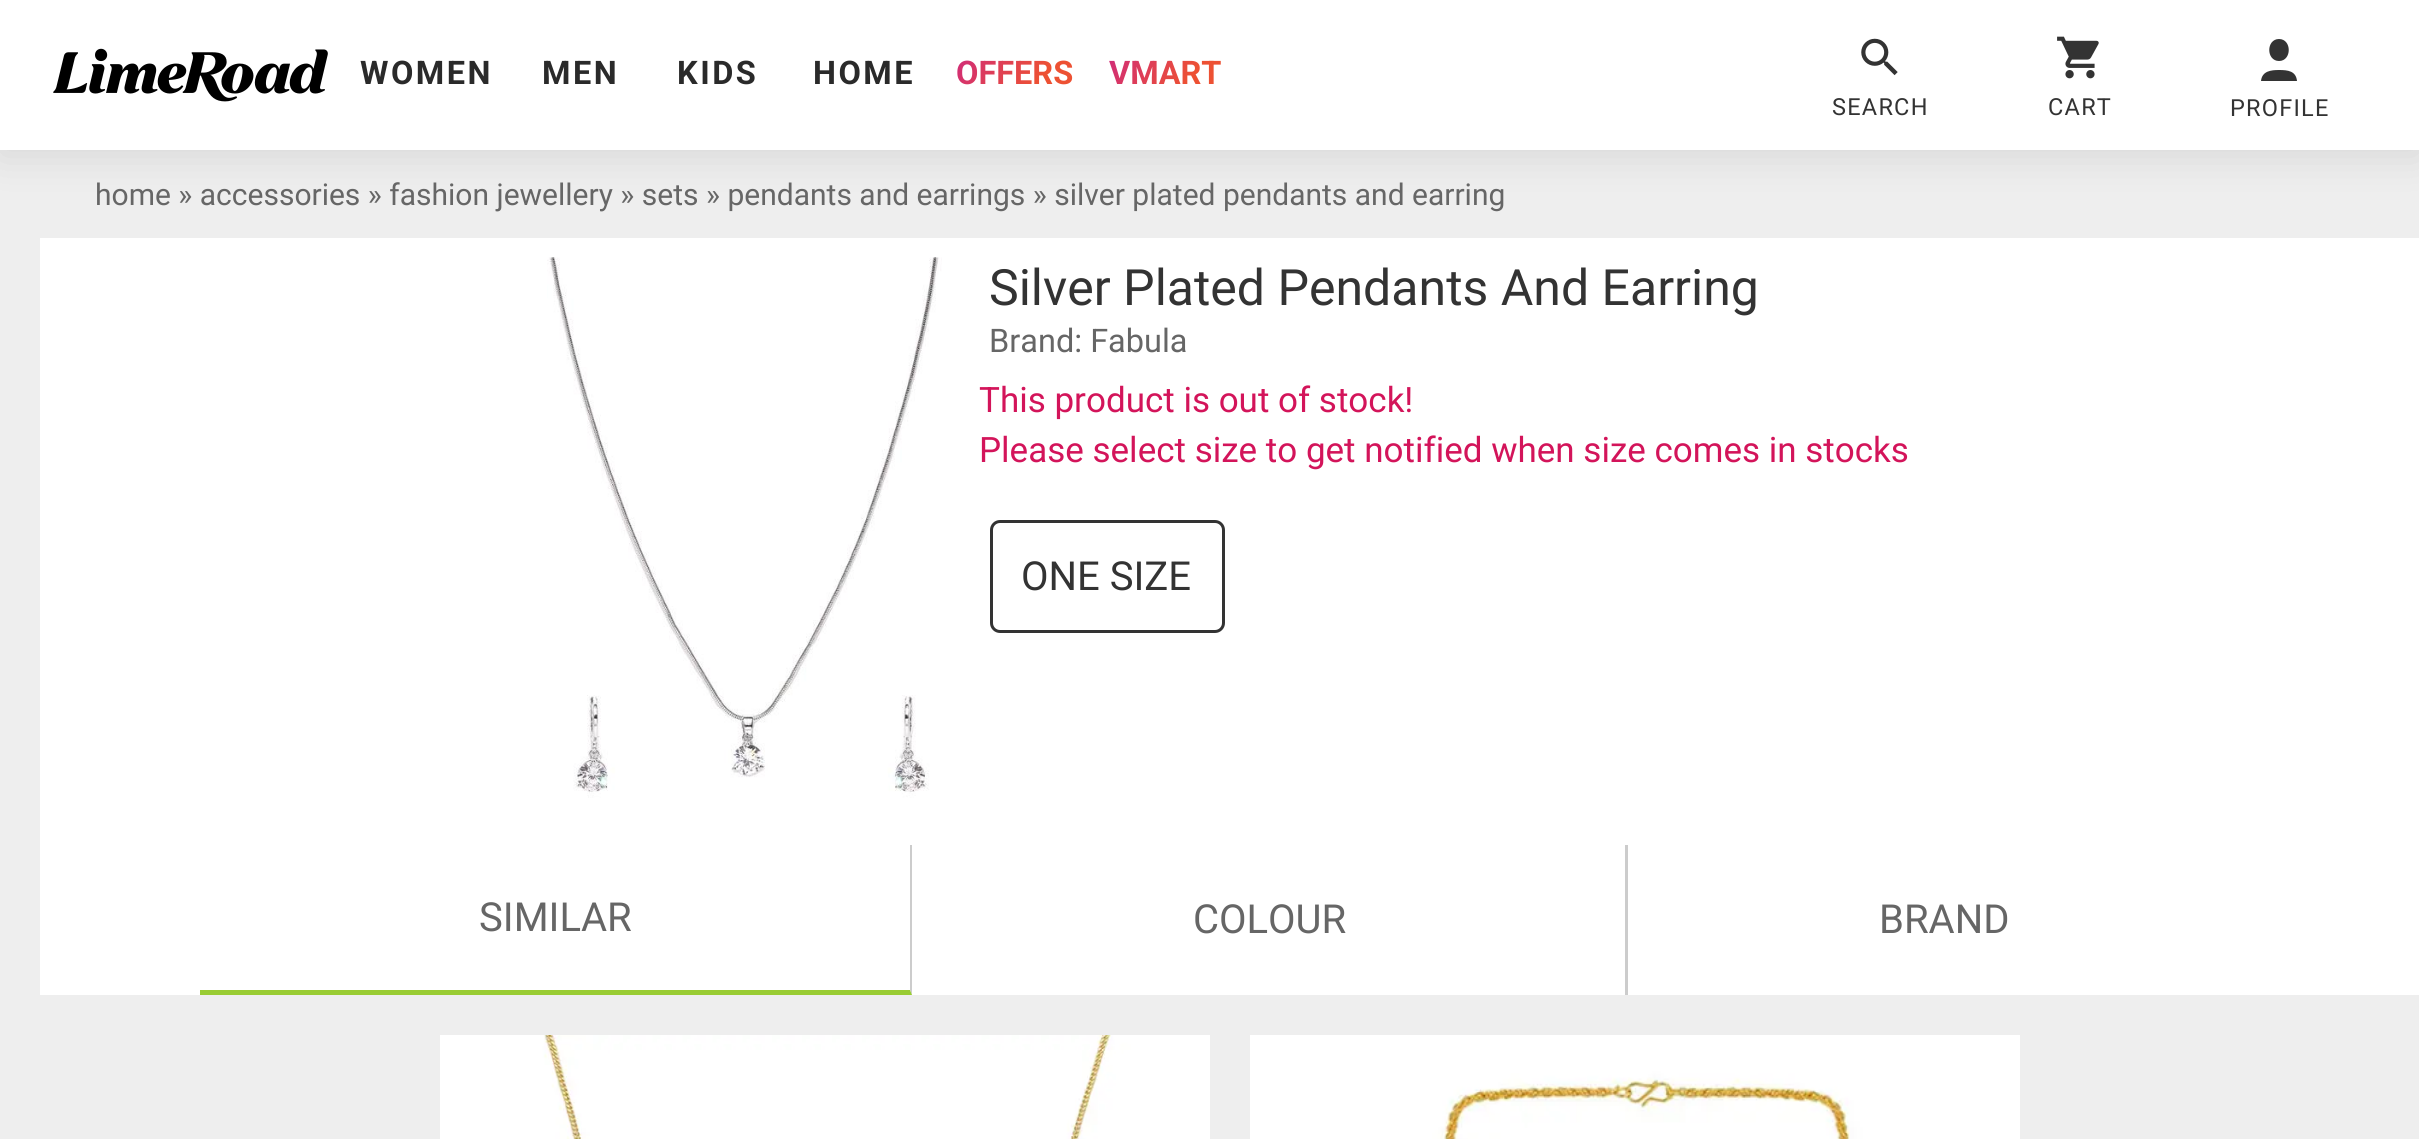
#include <cairo.h>
#include <math.h>
#include <stddef.h>

typedef struct { const char *family; double size; int italic, bold; unsigned color; } style_t;
static cairo_t *ctx;

static void ink(unsigned color) {
    cairo_set_source_rgb(ctx, (color >> 16) / 255.0, (color >> 8 & 255) / 255.0, (color & 255) / 255.0);
}

static void write(double x, double y, const char *s, const style_t *st) {
    cairo_select_font_face(ctx, st->family, st->italic ? CAIRO_FONT_SLANT_ITALIC : CAIRO_FONT_SLANT_NORMAL,
        st->bold ? CAIRO_FONT_WEIGHT_BOLD : CAIRO_FONT_WEIGHT_NORMAL);
    cairo_set_font_size(ctx, st->size);
    ink(st->color);
    cairo_move_to(ctx, x, y);
    cairo_show_text(ctx, s);
}

static void write_spaced(double x, double y, const char *s, double letter, double word) {
    cairo_move_to(ctx, x, y);
    while (*s) {
        char ch[5] = {0};
        int n = 0;
        do ch[n++] = *s++; while ((*s & 0xC0) == 0x80);
        cairo_show_text(ctx, ch);
        cairo_rel_move_to(ctx, letter + word * (*ch == ' '), 0);
    }
}

static void block(double x, double y, double w, double h, unsigned color) {
    ink(color);
    cairo_rectangle(ctx, x, y, w, h);
    cairo_fill(ctx);
}

static void round_path(double x, double y, double w, double h, double r) {
    cairo_new_sub_path(ctx);
    cairo_arc(ctx, x + w - r, y + h - r, r, 0, M_PI / 2);
    cairo_arc(ctx, x + r, y + h - r, r, M_PI / 2, M_PI);
    cairo_arc(ctx, x + r, y + r, r, M_PI, 1.5 * M_PI);
    cairo_arc(ctx, x + w - r, y + r, r, 1.5 * M_PI, 2 * M_PI);
    cairo_close_path(ctx);
}

static void blur_box(double x, double y, double w, double h, double r, double blur, double alpha) {
    cairo_push_group_with_content(ctx, CAIRO_CONTENT_ALPHA);
    cairo_set_operator(ctx, CAIRO_OPERATOR_SOURCE);
    for (int i = 15; i >= -15 && fmin(w, h) + blur * i / 3 > 0; i -= 2) {
        double e = blur * i / 6;
        cairo_set_source_rgba(ctx, 0, 0, 0, alpha * erfc((i - 1) / 8.5) / 2);
        round_path(x - e, y - e, w + 2 * e, h + 2 * e, fmax(0, fmin(r + e + blur * .6, fmin(w, h) / 2 + e)));
        cairo_fill(ctx);
    }
    cairo_pattern_t *soft = cairo_pop_group(ctx);
    cairo_mask(ctx, soft);
    cairo_pattern_destroy(soft);
}

static void paste(const char *path, double x, double y, double w, double h) {
    cairo_surface_t *image = cairo_image_surface_create_from_png(path);
    cairo_save(ctx);
    cairo_set_source_surface(ctx, image, x, y);
    cairo_rectangle(ctx, x, y, w, h);
    cairo_fill(ctx);
    cairo_restore(ctx);
    cairo_surface_destroy(image);
}

static const style_t s1 = {"Roboto", 30, 0, 0, 0x666666};
static const style_t s2 = {"Roboto", 50, 0, 0, 0x333333};
static const style_t s3 = {"Roboto", 32.5, 0, 0, 0x666666};
static const style_t s4 = {"Roboto", 35, 0, 0, 0xd3145a};
static const style_t s5 = {"Roboto", 40, 0, 0, 0x333333};
static const style_t s6 = {"Roboto", 40, 0, 0, 0x666666};

int main(void) {
    cairo_surface_t *surface = cairo_image_surface_create(CAIRO_FORMAT_RGB24, 2419, 1139);
    ctx = cairo_create(surface);
    cairo_font_options_t *options = cairo_font_options_create();
    cairo_font_options_set_hint_metrics(options, CAIRO_HINT_METRICS_OFF);
    cairo_font_options_set_hint_style(options, CAIRO_HINT_STYLE_NONE);
    cairo_set_font_options(ctx, options);
    cairo_set_miter_limit(ctx, 4);
    cairo_pattern_t *gradient;
    ink(0xeeeeee);
    cairo_paint(ctx);
    ink(0x555555);
    blur_box(0, 5, 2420, 150, 0, 20, 0.16);
    block(0, 0, 2419, 150, 0xffffff);
    paste("pic1.png", 53, 48, 275, 54);
    cairo_select_font_face(ctx, "Roboto", CAIRO_FONT_SLANT_NORMAL, CAIRO_FONT_WEIGHT_BOLD);
    cairo_set_font_size(ctx, 32.5);
    ink(0x2a2a2a);
    write_spaced(360, 84, "WOMEN", 2.5, 0);
    write_spaced(542, 84, "MEN", 2.5, 0);
    write_spaced(677, 84, "KIDS", 2.5, 0);
    write_spaced(813, 84, "HOME", 2.5, 0);
    gradient = cairo_pattern_create_linear(960, 38, 1065, 105);
    cairo_pattern_add_color_stop_rgba(gradient, 0, 0.808, 0.161, 0.494, 1);
    cairo_pattern_add_color_stop_rgba(gradient, 0.73, 0.929, 0.318, 0.2, 1);
    cairo_set_source(ctx, gradient);
    cairo_pattern_destroy(gradient);
    cairo_move_to(ctx, 956, 84);
    cairo_show_text(ctx, "OFFERS");
    gradient = cairo_pattern_create_linear(1112, 39, 1213, 104);
    cairo_pattern_add_color_stop_rgba(gradient, 0, 0.808, 0.161, 0.494, 1);
    cairo_pattern_add_color_stop_rgba(gradient, 0.73, 0.929, 0.318, 0.2, 1);
    cairo_set_source(ctx, gradient);
    cairo_pattern_destroy(gradient);
    cairo_move_to(ctx, 1109, 84);
    cairo_show_text(ctx, "VMART");
    paste("pic2.png", 1861, 38, 37, 38);
    cairo_select_font_face(ctx, "Roboto", CAIRO_FONT_SLANT_NORMAL, CAIRO_FONT_WEIGHT_NORMAL);
    cairo_set_font_size(ctx, 23.5);
    ink(0x333333);
    write_spaced(1832, 115, "SEARCH", 1.25, 0);
    paste("pic3.png", 2057, 36, 42, 43);
    write_spaced(2048, 115, "CART", 1.25, 0);
    cairo_new_path(ctx);
    cairo_move_to(ctx, 2279, 61);
    cairo_curve_to(ctx, 2266, 61, 2266, 39, 2279, 39);
    cairo_curve_to(ctx, 2292, 39, 2292, 61, 2279, 61);
    cairo_close_path(ctx);
    cairo_move_to(ctx, 2297, 81);
    cairo_line_to(ctx, 2261, 81);
    cairo_curve_to(ctx, 2262, 71, 2271, 70, 2279, 70);
    cairo_curve_to(ctx, 2288, 70, 2296, 71, 2297, 81);
    cairo_close_path(ctx);
    cairo_fill(ctx);
    write_spaced(2230, 116, "PROFILE", 1.25, 0);
    write(95, 205, "home » accessories » fashion jewellery » sets » pendants and earrings » silver plated pendants and earring", &s1);
    block(40, 238, 2379, 757, 0xffffff);
    paste("pic4.png", 547, 257, 395, 541);
    write(989, 305, "Silver Plated Pendants And Earring", &s2);
    write(989, 352, "Brand: Fabula", &s3);
    write(979, 412, "This product is out of stock!", &s4);
    write(979, 462, "Please select size to get notified when size comes in stocks", &s4);
    round_path(991.5, 521.5, 232, 110, 8.5);
    ink(0x333333);
    cairo_set_line_width(ctx, 3);
    cairo_stroke(ctx);
    write(1021, 590, "ONE SIZE", &s5);
    ink(0xcccccc);
    cairo_new_path(ctx);
    cairo_move_to(ctx, 912, 845);
    cairo_line_to(ctx, 912, 995);
    cairo_line_to(ctx, 910, 990);
    cairo_line_to(ctx, 910, 845);
    cairo_close_path(ctx);
    cairo_fill(ctx);
    ink(0x99cc33);
    cairo_new_path(ctx);
    cairo_move_to(ctx, 912, 995);
    cairo_line_to(ctx, 200, 995);
    cairo_line_to(ctx, 200, 990);
    cairo_line_to(ctx, 910, 990);
    cairo_close_path(ctx);
    cairo_fill(ctx);
    write(479, 931, "SIMILAR", &s6);
    block(1625, 845, 3, 150, 0xcccccc);
    write(1193, 933, "COLOUR", &s6);
    write(1879, 933, "BRAND", &s6);
    paste("pic5.png", 440, 1035, 770, 104);
    paste("pic6.png", 1250, 1035, 770, 104);
    cairo_surface_write_to_png(surface, "screenshot.png");
    cairo_font_options_destroy(options);
    cairo_destroy(ctx);
    cairo_surface_destroy(surface);
    return 0;
}
